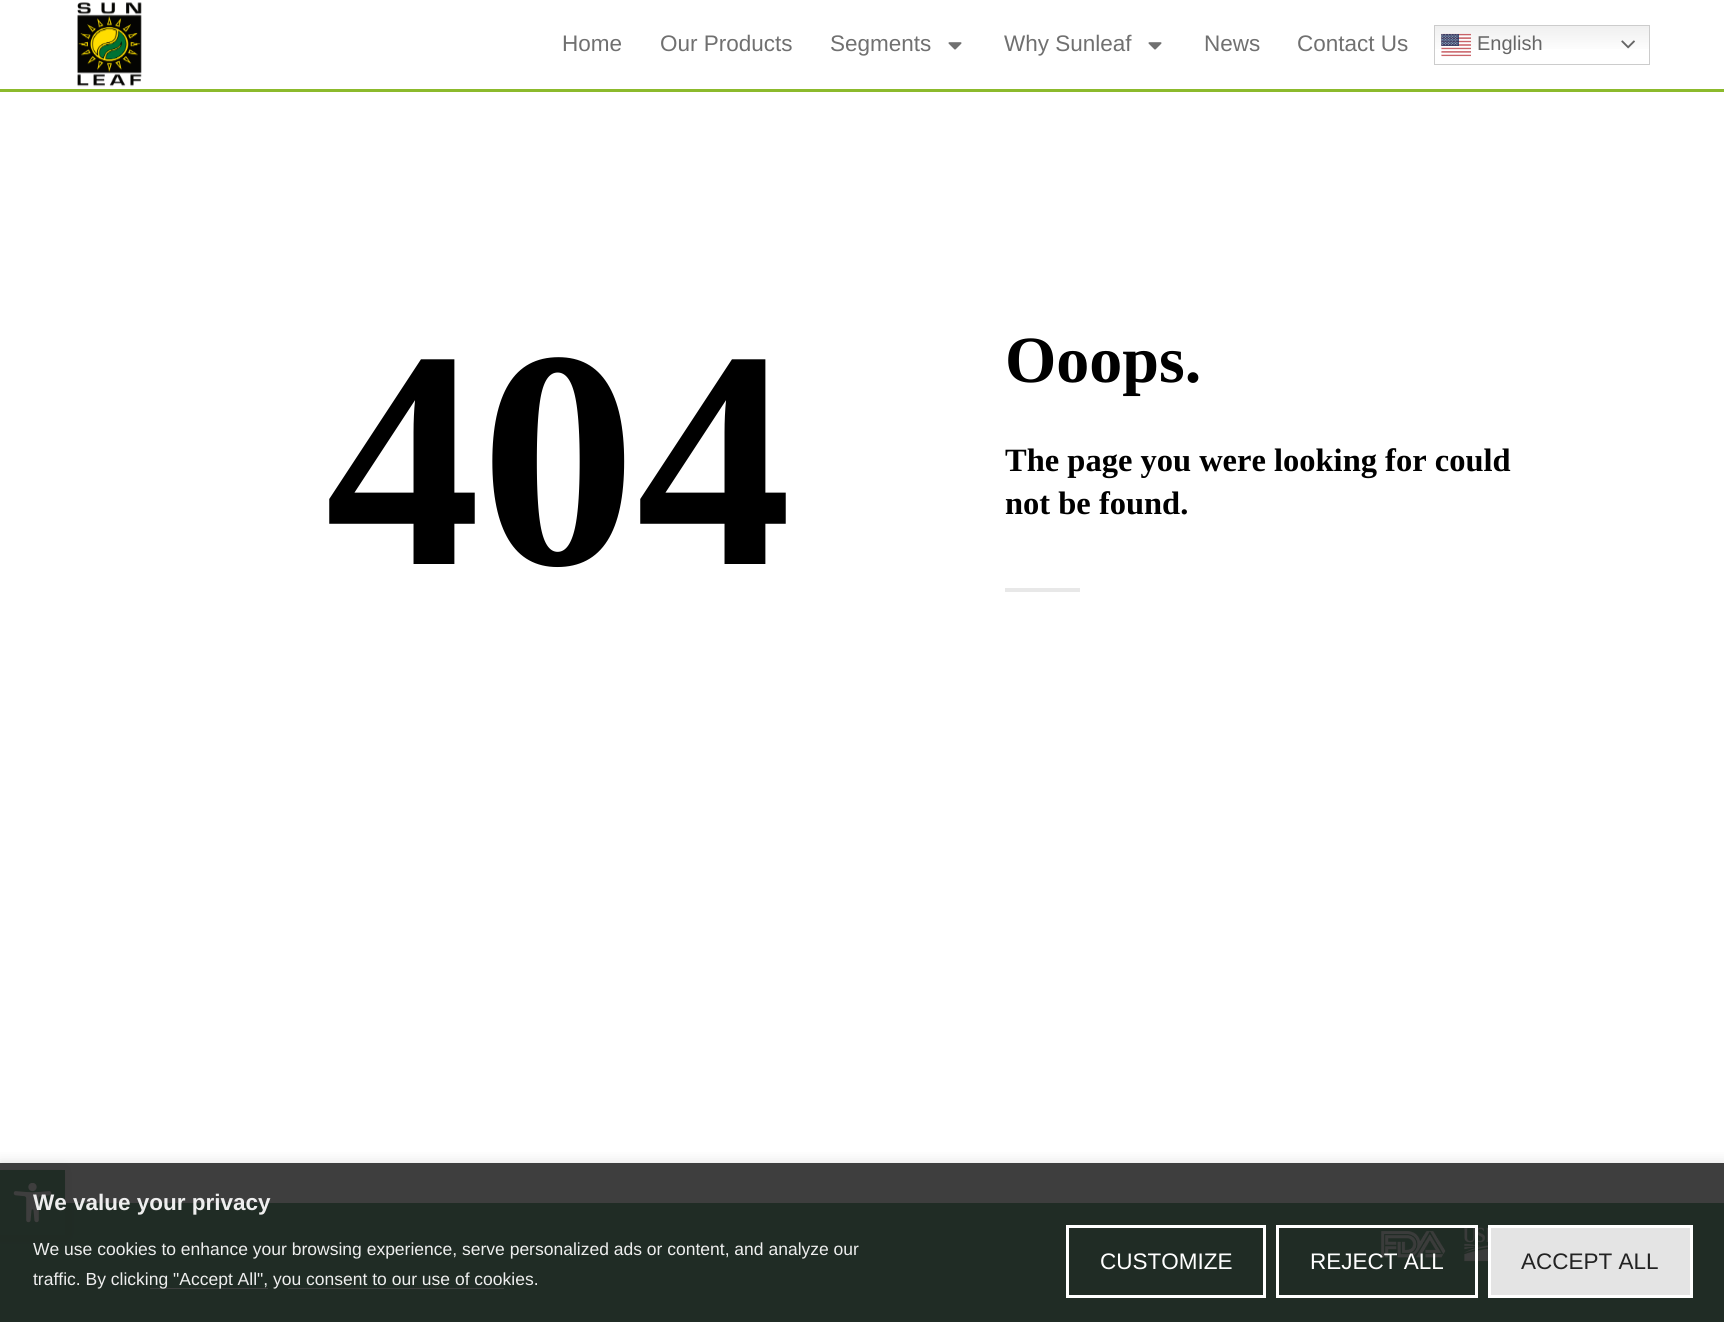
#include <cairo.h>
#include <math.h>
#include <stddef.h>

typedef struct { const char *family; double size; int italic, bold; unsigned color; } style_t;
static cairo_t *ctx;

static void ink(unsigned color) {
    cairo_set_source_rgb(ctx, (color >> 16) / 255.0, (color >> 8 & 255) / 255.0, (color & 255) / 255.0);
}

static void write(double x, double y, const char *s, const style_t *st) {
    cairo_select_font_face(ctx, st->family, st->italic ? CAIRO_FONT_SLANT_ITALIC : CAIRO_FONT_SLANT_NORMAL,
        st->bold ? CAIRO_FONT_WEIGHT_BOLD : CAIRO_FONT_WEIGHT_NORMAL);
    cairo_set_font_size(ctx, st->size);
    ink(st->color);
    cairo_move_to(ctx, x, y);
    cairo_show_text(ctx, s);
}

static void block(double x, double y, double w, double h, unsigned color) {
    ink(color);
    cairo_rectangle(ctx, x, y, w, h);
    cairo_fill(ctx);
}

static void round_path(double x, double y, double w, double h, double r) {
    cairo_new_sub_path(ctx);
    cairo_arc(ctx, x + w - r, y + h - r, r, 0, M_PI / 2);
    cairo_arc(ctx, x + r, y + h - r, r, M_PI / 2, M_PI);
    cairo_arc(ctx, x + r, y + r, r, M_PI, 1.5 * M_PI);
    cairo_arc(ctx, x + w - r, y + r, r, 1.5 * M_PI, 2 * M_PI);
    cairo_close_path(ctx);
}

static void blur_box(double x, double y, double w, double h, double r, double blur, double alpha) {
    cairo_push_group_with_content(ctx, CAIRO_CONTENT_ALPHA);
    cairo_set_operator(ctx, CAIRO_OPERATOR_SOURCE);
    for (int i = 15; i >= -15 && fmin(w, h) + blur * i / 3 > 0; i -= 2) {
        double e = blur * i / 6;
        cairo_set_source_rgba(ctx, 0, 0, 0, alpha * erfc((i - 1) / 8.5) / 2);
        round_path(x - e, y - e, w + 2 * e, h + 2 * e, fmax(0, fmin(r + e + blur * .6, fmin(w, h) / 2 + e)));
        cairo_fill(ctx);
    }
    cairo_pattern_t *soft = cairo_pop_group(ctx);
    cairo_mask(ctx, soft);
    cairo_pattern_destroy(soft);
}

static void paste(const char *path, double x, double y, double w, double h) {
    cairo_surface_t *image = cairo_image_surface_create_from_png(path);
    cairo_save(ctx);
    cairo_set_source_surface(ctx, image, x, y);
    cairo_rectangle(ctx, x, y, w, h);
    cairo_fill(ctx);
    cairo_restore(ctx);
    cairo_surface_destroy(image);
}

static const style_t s1 = {"Liberation Sans", 22.5, 0, 0, 0x707070};
static const style_t s2 = {"Liberation Sans", 20, 0, 0, 0x666666};
static const style_t s3 = {"Liberation Serif", 311, 0, 1, 0x000000};
static const style_t s4 = {"Liberation Serif", 66, 0, 1, 0x000000};
static const style_t s5 = {"Liberation Serif", 32.5, 0, 1, 0x000000};
static const style_t s6 = {"Liberation Sans", 22.5, 0, 1, 0xeeeeee};
static const style_t s7 = {"Liberation Sans", 17.5, 0, 0, 0xeeeeee};
static const style_t s8 = {"Liberation Sans", 22.5, 0, 0, 0xffffff};
static const style_t s9 = {"Liberation Sans", 22.5, 0, 0, 0x222222};

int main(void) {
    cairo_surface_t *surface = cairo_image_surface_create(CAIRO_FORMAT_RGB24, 1724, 1322);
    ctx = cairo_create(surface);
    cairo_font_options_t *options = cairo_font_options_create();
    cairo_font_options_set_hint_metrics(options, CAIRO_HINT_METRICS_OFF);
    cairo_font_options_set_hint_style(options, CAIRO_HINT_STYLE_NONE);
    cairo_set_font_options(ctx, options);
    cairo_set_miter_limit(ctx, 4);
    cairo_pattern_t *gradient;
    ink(0xffffff);
    cairo_paint(ctx);
    block(0, 89, 1724, 3, 0x8cba2c);
    paste("pic1.png", 77, 2, 65, 85);
    write(562, 51, "Home", &s1);
    write(660, 51, "Our Products", &s1);
    write(830, 51, "Segments", &s1);
    paste("pic2.png", 948, 42, 14, 8);
    write(1004, 51, "Why Sunleaf", &s1);
    paste("pic2.png", 1148, 42, 14, 8);
    write(1204, 51, "News", &s1);
    write(1297, 51, "Contact Us", &s1);
    gradient = cairo_pattern_create_linear(1542, 25, 1542, 65);
    cairo_pattern_add_color_stop_rgba(gradient, 0, 0.937, 0.937, 0.937, 1);
    cairo_pattern_add_color_stop_rgba(gradient, 0.7, 1, 1, 1, 1);
    cairo_set_source(ctx, gradient);
    cairo_pattern_destroy(gradient);
    cairo_rectangle(ctx, 1435, 26, 214, 23);
    cairo_fill(ctx);
    cairo_rectangle(ctx, 1434.5, 25.5, 215, 39);
    ink(0xcccccc);
    cairo_set_line_width(ctx, 1);
    cairo_stroke(ctx);
    paste("pic3.png", 1441, 33, 30, 24);
    write(1477, 50, "English", &s2);
    paste("pic4.png", 1621, 40, 14, 9);
    write(325, 564, "404", &s3);
    write(1005, 382, "Ooops.", &s4);
    write(1005, 471, "The page you were looking for could", &s5);
    write(1005, 514, "not be found.", &s5);
    block(1005, 588, 75, 4, 0xe8e8e8);
    block(0, 1203, 1724, 119, 0x1b713a);
    ink(0x000000);
    blur_box(0, 1170, 65, 65, 0, 6, 0.1);
    block(0, 1170, 65, 65, 0x1b713a);
    paste("pic5.png", 13, 1183, 39, 40);
    paste("pic6.png", 1381, 1227, 107, 35);
    block(150, 1288, 118, 1, 0xffffff);
    block(288, 1288, 216, 1, 0xffffff);
    cairo_save(ctx);
    cairo_rectangle(ctx, 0, 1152, 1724, 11);
    cairo_clip(ctx);
    ink(0xacabab);
    blur_box(0, 1161, 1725, 160, 0, 6, 0.3);
    cairo_restore(ctx);
    cairo_set_source_rgba(ctx, 0.133, 0.133, 0.133, 0.87);
    cairo_rectangle(ctx, 0, 1163, 1724, 159);
    cairo_fill(ctx);
    write(33, 1210, "We value your privacy", &s6);
    write(33, 1255, "We use cookies to enhance your browsing experience, serve personalized ads or content, and analyze our", &s7);
    write(33, 1285, "traffic. By clicking \"Accept All\", you consent to our use of cookies.", &s7);
    cairo_rectangle(ctx, 1067.5, 1226.5, 197, 70);
    ink(0xffffff);
    cairo_set_line_width(ctx, 3);
    cairo_stroke(ctx);
    write(1100, 1269, "CUSTOMIZE", &s8);
    cairo_rectangle(ctx, 1277.5, 1226.5, 199, 70);
    cairo_stroke(ctx);
    write(1310, 1269, "REJECT ALL", &s8);
    ink(0xe4e4e4);
    cairo_rectangle(ctx, 1489.5, 1226.5, 202, 70);
    cairo_fill_preserve(ctx);
    ink(0xffffff);
    cairo_stroke(ctx);
    write(1521, 1269, "ACCEPT ALL", &s9);
    cairo_surface_write_to_png(surface, "screenshot.png");
    cairo_font_options_destroy(options);
    cairo_destroy(ctx);
    cairo_surface_destroy(surface);
    return 0;
}
